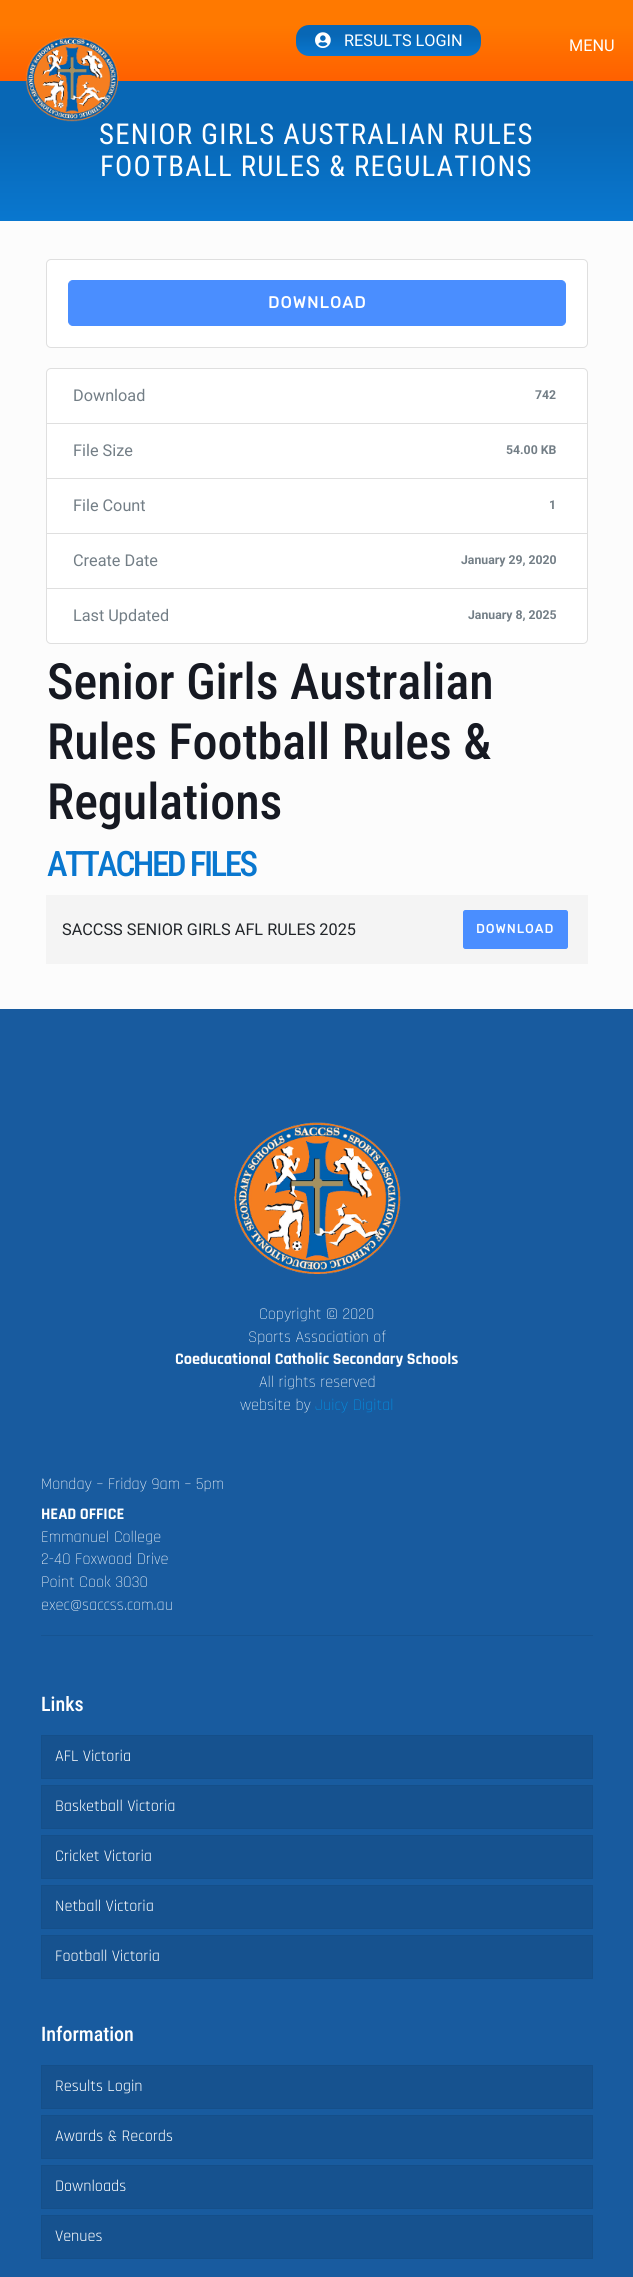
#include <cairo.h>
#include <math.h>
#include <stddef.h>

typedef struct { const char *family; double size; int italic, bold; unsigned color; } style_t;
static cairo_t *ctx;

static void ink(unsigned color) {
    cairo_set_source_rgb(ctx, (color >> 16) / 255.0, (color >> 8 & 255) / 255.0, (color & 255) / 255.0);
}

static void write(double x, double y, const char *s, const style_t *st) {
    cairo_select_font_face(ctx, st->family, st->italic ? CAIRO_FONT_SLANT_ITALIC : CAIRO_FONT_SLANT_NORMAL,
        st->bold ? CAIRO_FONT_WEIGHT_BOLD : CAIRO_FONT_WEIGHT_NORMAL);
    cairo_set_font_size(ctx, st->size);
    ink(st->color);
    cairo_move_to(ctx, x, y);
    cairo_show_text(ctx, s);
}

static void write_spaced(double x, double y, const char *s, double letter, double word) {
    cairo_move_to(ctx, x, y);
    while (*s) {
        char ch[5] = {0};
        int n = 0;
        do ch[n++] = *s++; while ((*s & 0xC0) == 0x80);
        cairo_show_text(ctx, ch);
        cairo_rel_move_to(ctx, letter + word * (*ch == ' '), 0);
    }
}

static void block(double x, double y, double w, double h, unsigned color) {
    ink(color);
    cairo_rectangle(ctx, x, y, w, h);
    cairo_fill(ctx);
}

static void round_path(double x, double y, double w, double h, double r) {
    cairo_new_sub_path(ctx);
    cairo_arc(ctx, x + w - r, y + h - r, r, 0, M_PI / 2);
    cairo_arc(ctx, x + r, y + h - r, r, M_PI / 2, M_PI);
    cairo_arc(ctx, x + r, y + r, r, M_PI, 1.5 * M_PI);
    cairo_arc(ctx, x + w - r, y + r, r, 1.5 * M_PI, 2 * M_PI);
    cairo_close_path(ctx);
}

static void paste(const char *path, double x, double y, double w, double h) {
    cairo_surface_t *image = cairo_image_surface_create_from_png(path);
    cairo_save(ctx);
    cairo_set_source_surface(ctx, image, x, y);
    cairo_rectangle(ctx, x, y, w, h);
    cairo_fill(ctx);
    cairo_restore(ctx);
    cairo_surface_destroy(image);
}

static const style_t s1 = {"Roboto", 16.25, 0, 0, 0xffffff};
static const style_t s2 = {"Roboto", 16.25, 0, 0, 0x737e86};
static const style_t s3 = {"Roboto", 12.25, 0, 1, 0x737e86};
static const style_t s4 = {"Roboto Condensed Medium", 50, 0, 0, 0x161922};
static const style_t s5 = {"Roboto", 16.25, 0, 0, 0x212529};
static const style_t s6 = {"Rajdhani Light", 16.25, 0, 0, 0xffffff};
static const style_t s7 = {"Rajdhani", 16.25, 0, 1, 0xffffff};
static const style_t s8 = {"Rajdhani Light", 16.25, 0, 0, 0x0095eb};
static const style_t s9 = {"Roboto Condensed Medium", 20, 0, 0, 0xffffff};
static const style_t s10 = {"Rajdhani", 16.25, 0, 0, 0xffffff};

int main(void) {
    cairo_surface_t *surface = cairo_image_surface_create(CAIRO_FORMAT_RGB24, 633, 2277);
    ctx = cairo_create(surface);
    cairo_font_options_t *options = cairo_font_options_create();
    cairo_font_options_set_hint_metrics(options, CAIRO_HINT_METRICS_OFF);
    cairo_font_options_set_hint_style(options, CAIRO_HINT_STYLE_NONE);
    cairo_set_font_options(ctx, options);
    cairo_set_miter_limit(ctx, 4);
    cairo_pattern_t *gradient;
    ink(0xfcfcfc);
    cairo_paint(ctx);
    gradient = cairo_pattern_create_linear(317, 0, 317, 81);
    cairo_pattern_add_color_stop_rgba(gradient, 0.31, 1, 0.475, 0, 1);
    cairo_pattern_add_color_stop_rgba(gradient, 1, 1, 0.376, 0, 1);
    cairo_set_source(ctx, gradient);
    cairo_pattern_destroy(gradient);
    cairo_rectangle(ctx, 0, 0, 633, 81);
    cairo_fill(ctx);
    gradient = cairo_pattern_create_linear(389, 25, 389, 56);
    cairo_pattern_add_color_stop_rgba(gradient, 0.31, 0.031, 0.404, 0.71, 1);
    cairo_pattern_add_color_stop_rgba(gradient, 1, 0.035, 0.467, 0.812, 1);
    cairo_set_source(ctx, gradient);
    cairo_pattern_destroy(gradient);
    round_path(296, 25, 185, 31, 13);
    cairo_fill(ctx);
    paste("pic1.png", 315, 32, 16, 16);
    write(344, 46, "RESULTS LOGIN", &s1);
    gradient = cairo_pattern_create_linear(317, 81, 317, 221);
    cairo_pattern_add_color_stop_rgba(gradient, 0.31, 0.031, 0.404, 0.71, 1);
    cairo_pattern_add_color_stop_rgba(gradient, 1, 0.035, 0.467, 0.812, 1);
    cairo_set_source(ctx, gradient);
    cairo_pattern_destroy(gradient);
    cairo_rectangle(ctx, 0, 81, 633, 140);
    cairo_fill(ctx);
    paste("pic2.png", 25, 36, 94, 86);
    write(569, 51, "MENU", &s1);
    cairo_select_font_face(ctx, "Roboto Condensed", CAIRO_FONT_SLANT_NORMAL, CAIRO_FONT_WEIGHT_NORMAL);
    cairo_set_font_size(ctx, 28.75);
    write_spaced(99, 144, "SENIOR GIRLS AUSTRALIAN RULES", 1.25, 0);
    write_spaced(100, 176, "FOOTBALL RULES & REGULATIONS", 1.25, 0);
    round_path(46.5, 259.5, 541, 88, 4.5);
    cairo_fill_preserve(ctx);
    ink(0xdfdfdf);
    cairo_set_line_width(ctx, 1);
    cairo_stroke(ctx);
    ink(0x4a8eff);
    round_path(68.5, 280.5, 497, 45, 4.5);
    cairo_fill_preserve(ctx);
    cairo_stroke(ctx);
    cairo_select_font_face(ctx, "Rubik", CAIRO_FONT_SLANT_NORMAL, CAIRO_FONT_WEIGHT_BOLD);
    cairo_set_font_size(ctx, 16.25);
    ink(0xffffff);
    write_spaced(268, 308, "DOWNLOAD", 1.25, 0);
    cairo_new_path(ctx);
    cairo_move_to(ctx, 51, 368.5);
    cairo_line_to(ctx, 583, 368.5);
    cairo_curve_to(ctx, 585.5, 368.5, 587.5, 370.5, 587.5, 373);
    cairo_line_to(ctx, 587.5, 423.5);
    cairo_line_to(ctx, 46.5, 423.5);
    cairo_line_to(ctx, 46.5, 373);
    cairo_curve_to(ctx, 46.5, 370.5, 48.5, 368.5, 51, 368.5);
    cairo_close_path(ctx);
    cairo_fill_preserve(ctx);
    ink(0xdfdfdf);
    cairo_stroke(ctx);
    write(73, 401, "Download", &s2);
    write(535, 399, "742", &s3);
    ink(0xffffff);
    cairo_rectangle(ctx, 46.5, 423.5, 541, 55);
    cairo_fill_preserve(ctx);
    ink(0xdfdfdf);
    cairo_stroke(ctx);
    write(73, 456, "File Size", &s2);
    write(506, 454, "54.00 KB", &s3);
    ink(0xffffff);
    cairo_rectangle(ctx, 46.5, 478.5, 541, 55);
    cairo_fill_preserve(ctx);
    ink(0xdfdfdf);
    cairo_stroke(ctx);
    write(73, 511, "File Count", &s2);
    write(549, 509, "1", &s3);
    ink(0xffffff);
    cairo_rectangle(ctx, 46.5, 533.5, 541, 55);
    cairo_fill_preserve(ctx);
    ink(0xdfdfdf);
    cairo_stroke(ctx);
    write(73, 566, "Create Date", &s2);
    write(461, 564, "January 29, 2020", &s3);
    ink(0xffffff);
    cairo_new_path(ctx);
    cairo_move_to(ctx, 46.5, 588.5);
    cairo_line_to(ctx, 587.5, 588.5);
    cairo_line_to(ctx, 587.5, 639);
    cairo_curve_to(ctx, 587.5, 641.5, 585.5, 643.5, 583, 643.5);
    cairo_line_to(ctx, 51, 643.5);
    cairo_curve_to(ctx, 48.5, 643.5, 46.5, 641.5, 46.5, 639);
    cairo_close_path(ctx);
    cairo_fill_preserve(ctx);
    ink(0xdfdfdf);
    cairo_stroke(ctx);
    write(73, 621, "Last Updated", &s2);
    write(468, 619, "January 8, 2025", &s3);
    write(47, 699, "Senior Girls Australian", &s4);
    write(47, 759, "Rules Football Rules &", &s4);
    write(47, 819, "Regulations", &s4);
    cairo_set_font_size(ctx, 35);
    ink(0x0977cf);
    write_spaced(47, 876, "ATTACHED FILES", -2.5, 0);
    block(46, 895, 542, 69, 0xf4f4f4);
    write(62, 935, "SACCSS SENIOR GIRLS AFL RULES 2025", &s5);
    ink(0x4a8eff);
    round_path(463.5, 910.5, 104, 38, 2);
    cairo_fill_preserve(ctx);
    cairo_stroke(ctx);
    cairo_select_font_face(ctx, "Rubik", CAIRO_FONT_SLANT_NORMAL, CAIRO_FONT_WEIGHT_BOLD);
    cairo_set_font_size(ctx, 12.5);
    ink(0xffffff);
    write_spaced(476, 933, "DOWNLOAD", 1.25, 0);
    block(0, 1009, 633, 1268, 0x185b9f);
    paste("pic3.png", 234, 1122, 167, 152);
    write(259, 1319, "Copyright © 2020", &s6);
    write(248, 1342, "Sports Association of", &s6);
    write(175, 1364, "Coeducational Catholic Secondary Schools", &s7);
    write(259, 1387, "All rights reserved", &s6);
    write(240, 1410, "website by", &s6);
    write(315, 1410, "Juicy Digital", &s8);
    write(41, 1489, "Monday – Friday 9am – 5pm", &s6);
    write(41, 1519, "HEAD OFFICE", &s7);
    write(41, 1542, "Emmanuel College", &s6);
    write(41, 1564, "2-40 Foxwood Drive", &s6);
    write(41, 1587, "Point Cook 3030", &s6);
    write(41, 1610, "exec@saccss.com.au", &s6);
    block(41, 1635, 552, 1, 0x165492);
    write(41, 1711, "Links", &s9);
    ink(0x16528f);
    cairo_rectangle(ctx, 41.5, 1735.5, 551, 43);
    cairo_fill_preserve(ctx);
    ink(0x154f89);
    cairo_stroke(ctx);
    write(55, 1761, "AFL Victoria", &s10);
    ink(0x16528f);
    cairo_rectangle(ctx, 41.5, 1785.5, 551, 43);
    cairo_fill_preserve(ctx);
    ink(0x154f89);
    cairo_stroke(ctx);
    write(55, 1811, "Basketball Victoria", &s10);
    ink(0x16528f);
    cairo_rectangle(ctx, 41.5, 1835.5, 551, 43);
    cairo_fill_preserve(ctx);
    ink(0x154f89);
    cairo_stroke(ctx);
    write(55, 1861, "Cricket Victoria", &s10);
    ink(0x16528f);
    cairo_rectangle(ctx, 41.5, 1885.5, 551, 43);
    cairo_fill_preserve(ctx);
    ink(0x154f89);
    cairo_stroke(ctx);
    write(55, 1911, "Netball Victoria", &s10);
    ink(0x16528f);
    cairo_rectangle(ctx, 41.5, 1935.5, 551, 43);
    cairo_fill_preserve(ctx);
    ink(0x154f89);
    cairo_stroke(ctx);
    write(55, 1961, "Football Victoria", &s10);
    write(41, 2041, "Information", &s9);
    ink(0x16528f);
    cairo_rectangle(ctx, 41.5, 2065.5, 551, 43);
    cairo_fill_preserve(ctx);
    ink(0x154f89);
    cairo_stroke(ctx);
    write(55, 2091, "Results Login", &s10);
    ink(0x16528f);
    cairo_rectangle(ctx, 41.5, 2115.5, 551, 43);
    cairo_fill_preserve(ctx);
    ink(0x154f89);
    cairo_stroke(ctx);
    write(55, 2141, "Awards & Records", &s10);
    ink(0x16528f);
    cairo_rectangle(ctx, 41.5, 2165.5, 551, 43);
    cairo_fill_preserve(ctx);
    ink(0x154f89);
    cairo_stroke(ctx);
    write(55, 2191, "Downloads", &s10);
    ink(0x16528f);
    cairo_rectangle(ctx, 41.5, 2215.5, 551, 43);
    cairo_fill_preserve(ctx);
    ink(0x154f89);
    cairo_stroke(ctx);
    write(55, 2241, "Venues", &s10);
    cairo_surface_write_to_png(surface, "screenshot.png");
    cairo_font_options_destroy(options);
    cairo_destroy(ctx);
    cairo_surface_destroy(surface);
    return 0;
}
